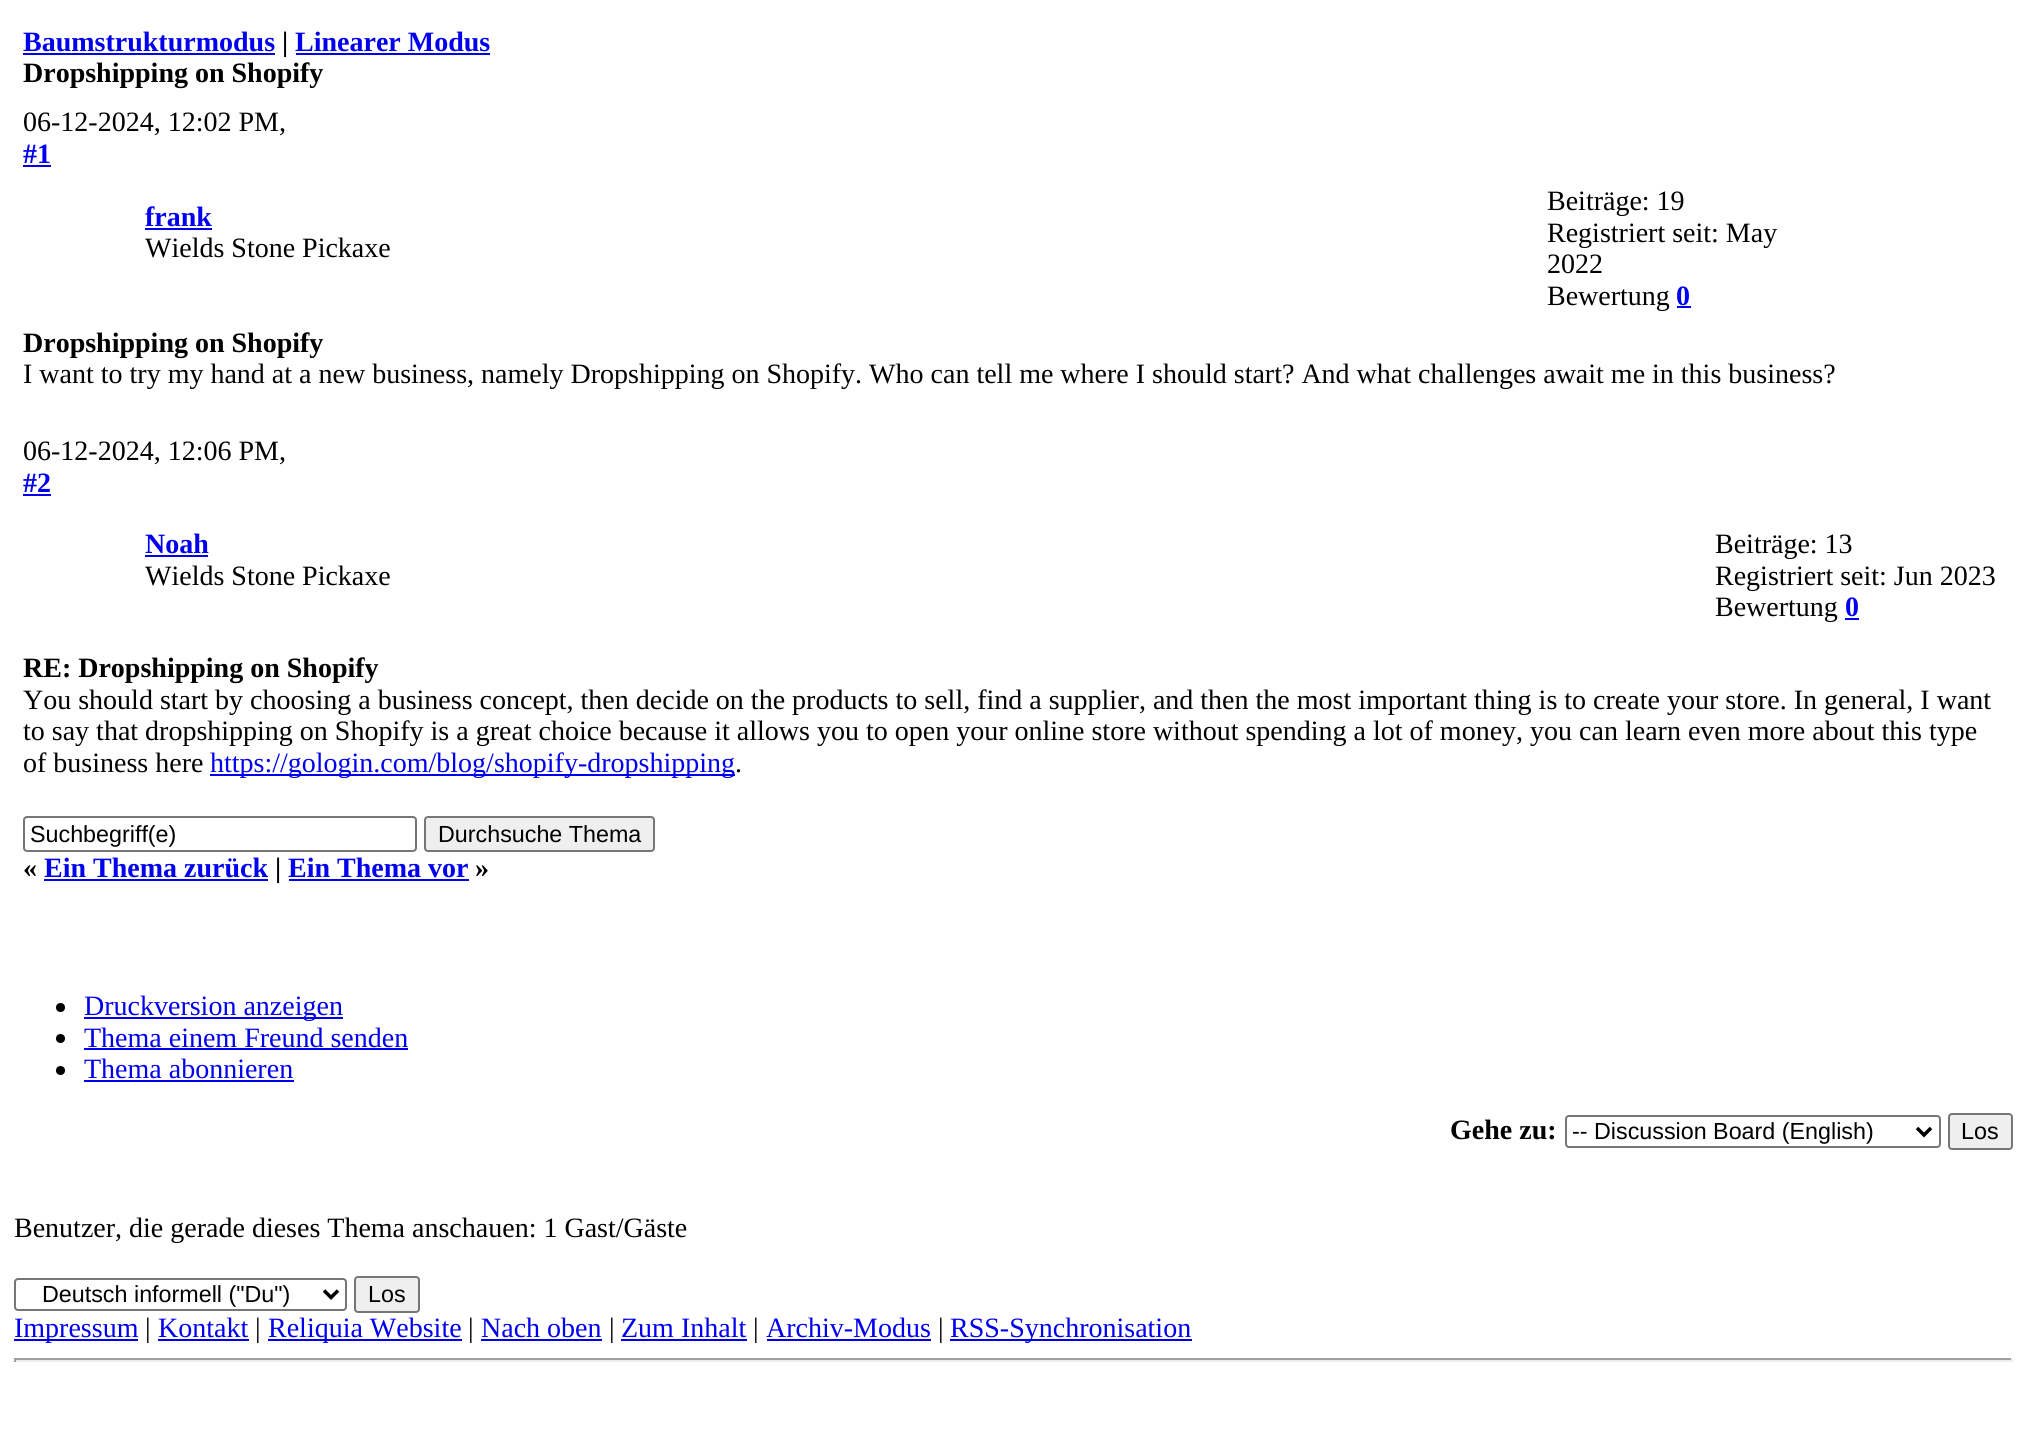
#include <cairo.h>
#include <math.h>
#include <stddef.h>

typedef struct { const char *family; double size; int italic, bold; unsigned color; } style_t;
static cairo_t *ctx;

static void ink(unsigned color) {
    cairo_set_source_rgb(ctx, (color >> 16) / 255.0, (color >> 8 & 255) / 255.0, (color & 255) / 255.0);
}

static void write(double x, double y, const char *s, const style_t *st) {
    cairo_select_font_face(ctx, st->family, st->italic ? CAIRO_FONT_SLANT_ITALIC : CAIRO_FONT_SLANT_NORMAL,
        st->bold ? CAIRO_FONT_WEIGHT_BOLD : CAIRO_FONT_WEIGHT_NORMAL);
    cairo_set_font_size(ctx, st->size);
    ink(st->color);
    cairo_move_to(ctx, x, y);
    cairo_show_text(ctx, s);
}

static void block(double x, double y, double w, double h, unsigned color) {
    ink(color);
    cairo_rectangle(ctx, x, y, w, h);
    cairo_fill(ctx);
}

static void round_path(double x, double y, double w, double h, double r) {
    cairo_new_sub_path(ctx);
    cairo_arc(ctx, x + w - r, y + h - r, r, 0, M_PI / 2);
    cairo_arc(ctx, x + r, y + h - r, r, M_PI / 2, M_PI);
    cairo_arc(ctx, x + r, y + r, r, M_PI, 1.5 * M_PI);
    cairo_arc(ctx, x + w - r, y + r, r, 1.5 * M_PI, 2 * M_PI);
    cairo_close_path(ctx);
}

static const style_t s1 = {"Liberation Serif", 28, 0, 1, 0x0000ee};
static const style_t s2 = {"Liberation Serif", 28, 0, 1, 0x000000};
static const style_t s3 = {"Liberation Serif", 28, 0, 0, 0x000000};
static const style_t s4 = {"Liberation Serif", 28, 0, 0, 0x0000ee};
static const style_t s5 = {"Liberation Sans", 23.3, 0, 0, 0x000000};

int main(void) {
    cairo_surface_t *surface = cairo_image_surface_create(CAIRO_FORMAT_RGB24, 2025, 1443);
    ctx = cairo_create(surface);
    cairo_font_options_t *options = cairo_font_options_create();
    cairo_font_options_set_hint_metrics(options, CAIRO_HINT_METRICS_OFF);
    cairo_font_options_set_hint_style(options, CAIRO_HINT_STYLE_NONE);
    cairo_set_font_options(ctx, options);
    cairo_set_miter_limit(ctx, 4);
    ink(0xffffff);
    cairo_paint(ctx);
    write(23, 51, "Baumstrukturmodus", &s1);
    block(23, 53, 252, 2, 0x0000ee);
    write(282, 51, "|", &s2);
    write(295, 51, "Linearer Modus", &s1);
    block(296, 53, 194, 2, 0x0000ee);
    write(23, 82, "Dropshipping on Shopify", &s2);
    write(23, 131, "06-12-2024, 12:02 PM,", &s3);
    write(23, 163, "#1", &s1);
    block(23, 165, 28, 2, 0x0000ee);
    write(145, 226, "frank", &s1);
    block(145, 228, 67, 2, 0x0000ee);
    write(145, 257, "Wields Stone Pickaxe", &s3);
    write(1547, 210, "Beiträge: 19", &s3);
    write(1547, 242, "Registriert seit: May", &s3);
    write(1547, 273, "2022", &s3);
    write(1547, 305, "Bewertung", &s3);
    write(1676, 305, "0", &s1);
    block(1677, 306, 14, 2, 0x0000ee);
    write(23, 352, "Dropshipping on Shopify", &s2);
    write(23, 383, "I want to try my hand at a new business, namely Dropshipping on Shopify. Who can tell me where I should start? And what challenges await me in this business?", &s3);
    write(23, 460, "06-12-2024, 12:06 PM,", &s3);
    write(23, 492, "#2", &s1);
    block(23, 494, 28, 2, 0x0000ee);
    write(145, 553, "Noah", &s1);
    block(145, 555, 63, 2, 0x0000ee);
    write(145, 585, "Wields Stone Pickaxe", &s3);
    write(1715, 553, "Beiträge: 13", &s3);
    write(1715, 585, "Registriert seit: Jun 2023", &s3);
    write(1715, 616, "Bewertung", &s3);
    write(1845, 616, "0", &s1);
    block(1845, 618, 14, 2, 0x0000ee);
    write(23, 677, "RE: Dropshipping on Shopify", &s2);
    write(23, 709, "You should start by choosing a business concept, then decide on the products to sell, find a supplier, and then the most important thing is to create your store. In general, I want", &s3);
    write(23, 740, "to say that dropshipping on Shopify is a great choice because it allows you to open your online store without spending a lot of money, you can learn even more about this type", &s3);
    write(23, 772, "of business here", &s3);
    block(210, 774, 525, 2, 0x0000ee);
    write(210, 772, "https://gologin.com/blog/shopify-dropshipping", &s4);
    write(735, 772, ".", &s3);
    round_path(24, 817, 392, 34, 3);
    ink(0x767676);
    cairo_stroke(ctx);
    write(30, 842, "Suchbegriff(e)", &s5);
    ink(0xefefef);
    round_path(425, 817, 229, 34, 3);
    cairo_fill_preserve(ctx);
    ink(0x767676);
    cairo_stroke(ctx);
    write(438, 842, "Durchsuche Thema", &s5);
    write(23, 877, "«", &s2);
    write(44, 877, "Ein Thema zurück", &s1);
    block(44, 879, 224, 2, 0x0000ee);
    write(275, 877, "|", &s2);
    write(288, 877, "Ein Thema vor", &s1);
    block(289, 879, 180, 2, 0x0000ee);
    write(475, 877, "»", &s2);
    cairo_new_path(ctx);
    cairo_arc(ctx, 60.5, 1007.5, 4.5, 0, 2 * M_PI);
    cairo_fill(ctx);
    block(84, 1017, 259, 2, 0x0000ee);
    write(84, 1015, "Druckversion anzeigen", &s4);
    ink(0x000000);
    cairo_new_path(ctx);
    cairo_arc(ctx, 60.5, 1038.5, 4.5, 0, 2 * M_PI);
    cairo_fill(ctx);
    write(84, 1047, "Thema einem Freund senden", &s4);
    block(84, 1048, 324, 2, 0x0000ee);
    ink(0x000000);
    cairo_new_path(ctx);
    cairo_arc(ctx, 60.5, 1070.5, 4.5, 0, 2 * M_PI);
    cairo_fill(ctx);
    write(84, 1078, "Thema abonnieren", &s4);
    block(84, 1080, 210, 2, 0x0000ee);
    write(1450, 1139, "Gehe zu:", &s2);
    round_path(1566, 1116, 374, 31, 3);
    ink(0x767676);
    cairo_stroke(ctx);
    cairo_new_path(ctx);
    cairo_move_to(ctx, 1917, 1128);
    cairo_line_to(ctx, 1924, 1135);
    cairo_line_to(ctx, 1931, 1128);
    ink(0x000000);
    cairo_set_line_width(ctx, 3.5);
    cairo_stroke(ctx);
    write(1572, 1139, "-- Discussion Board (English)", &s5);
    ink(0xefefef);
    round_path(1949, 1114, 63, 35, 3);
    cairo_fill_preserve(ctx);
    ink(0x767676);
    cairo_set_line_width(ctx, 2);
    cairo_stroke(ctx);
    write(1961, 1139, "Los", &s5);
    write(14, 1237, "Benutzer, die gerade dieses Thema anschauen: 1 Gast/Gäste", &s3);
    round_path(15, 1279, 331, 31, 3);
    ink(0x767676);
    cairo_stroke(ctx);
    cairo_new_path(ctx);
    cairo_move_to(ctx, 324, 1290.5);
    cairo_line_to(ctx, 331, 1297.5);
    cairo_line_to(ctx, 338, 1290.5);
    ink(0x000000);
    cairo_set_line_width(ctx, 3.5);
    cairo_stroke(ctx);
    write(42, 1302, "Deutsch informell (\"Du\")", &s5);
    ink(0xefefef);
    round_path(355, 1277, 64, 35, 3);
    cairo_fill_preserve(ctx);
    ink(0x767676);
    cairo_set_line_width(ctx, 2);
    cairo_stroke(ctx);
    write(368, 1302, "Los", &s5);
    block(14, 1339, 124, 2, 0x0000ee);
    write(14, 1337, "Impressum", &s4);
    write(145, 1337, "|", &s3);
    write(158, 1337, "Kontakt", &s4);
    block(158, 1339, 91, 2, 0x0000ee);
    write(255, 1337, "|", &s3);
    block(268, 1339, 194, 2, 0x0000ee);
    write(268, 1337, "Reliquia Website", &s4);
    write(468, 1337, "|", &s3);
    write(481, 1337, "Nach oben", &s4);
    block(481, 1339, 121, 2, 0x0000ee);
    write(609, 1337, "|", &s3);
    write(621, 1337, "Zum Inhalt", &s4);
    block(621, 1339, 126, 2, 0x0000ee);
    write(753, 1337, "|", &s3);
    write(766, 1337, "Archiv-Modus", &s4);
    block(767, 1339, 164, 2, 0x0000ee);
    write(938, 1337, "|", &s3);
    block(950, 1339, 242, 2, 0x0000ee);
    write(950, 1337, "RSS-Synchronisation", &s4);
    block(14, 1358, 1999, 2, 0x9f9f9f);
    block(2011, 1358, 2, 4, 0xeeeeee);
    block(14, 1360, 1999, 2, 0xeeeeee);
    block(14, 1358, 2, 4, 0x9f9f9f);
    cairo_surface_write_to_png(surface, "screenshot.png");
    cairo_font_options_destroy(options);
    cairo_destroy(ctx);
    cairo_surface_destroy(surface);
    return 0;
}
